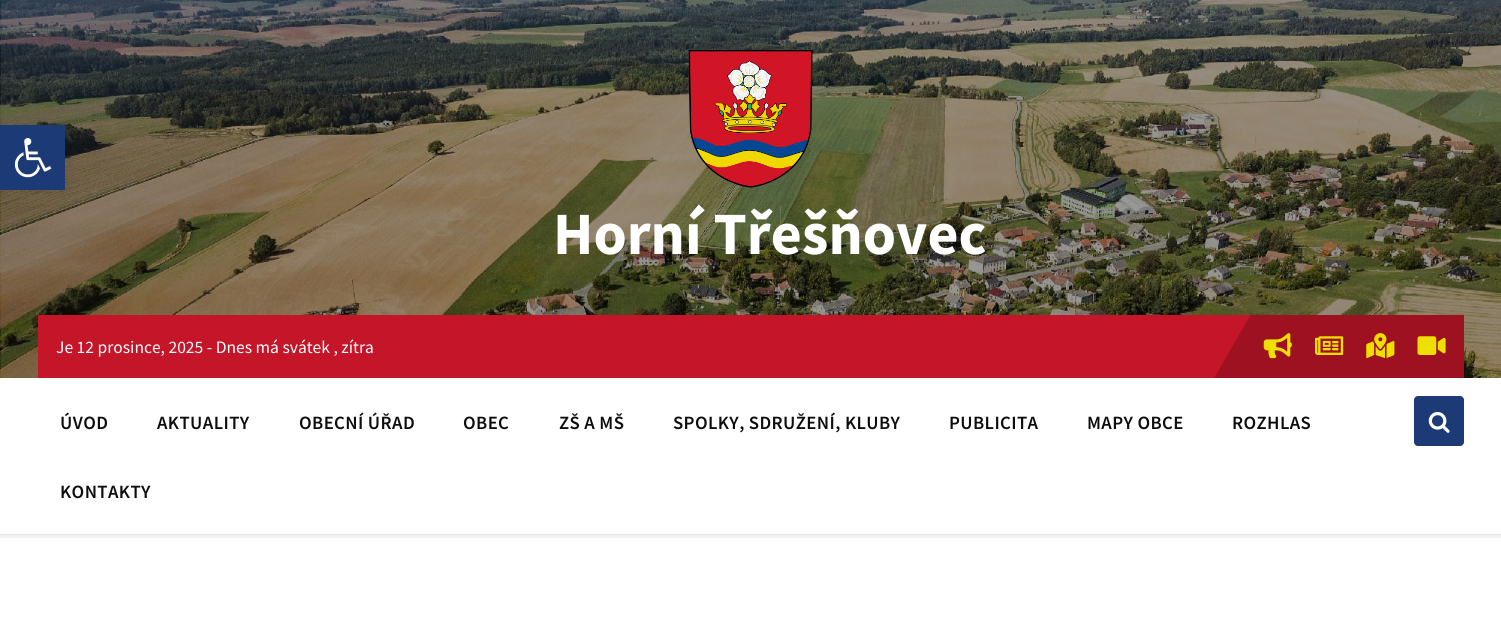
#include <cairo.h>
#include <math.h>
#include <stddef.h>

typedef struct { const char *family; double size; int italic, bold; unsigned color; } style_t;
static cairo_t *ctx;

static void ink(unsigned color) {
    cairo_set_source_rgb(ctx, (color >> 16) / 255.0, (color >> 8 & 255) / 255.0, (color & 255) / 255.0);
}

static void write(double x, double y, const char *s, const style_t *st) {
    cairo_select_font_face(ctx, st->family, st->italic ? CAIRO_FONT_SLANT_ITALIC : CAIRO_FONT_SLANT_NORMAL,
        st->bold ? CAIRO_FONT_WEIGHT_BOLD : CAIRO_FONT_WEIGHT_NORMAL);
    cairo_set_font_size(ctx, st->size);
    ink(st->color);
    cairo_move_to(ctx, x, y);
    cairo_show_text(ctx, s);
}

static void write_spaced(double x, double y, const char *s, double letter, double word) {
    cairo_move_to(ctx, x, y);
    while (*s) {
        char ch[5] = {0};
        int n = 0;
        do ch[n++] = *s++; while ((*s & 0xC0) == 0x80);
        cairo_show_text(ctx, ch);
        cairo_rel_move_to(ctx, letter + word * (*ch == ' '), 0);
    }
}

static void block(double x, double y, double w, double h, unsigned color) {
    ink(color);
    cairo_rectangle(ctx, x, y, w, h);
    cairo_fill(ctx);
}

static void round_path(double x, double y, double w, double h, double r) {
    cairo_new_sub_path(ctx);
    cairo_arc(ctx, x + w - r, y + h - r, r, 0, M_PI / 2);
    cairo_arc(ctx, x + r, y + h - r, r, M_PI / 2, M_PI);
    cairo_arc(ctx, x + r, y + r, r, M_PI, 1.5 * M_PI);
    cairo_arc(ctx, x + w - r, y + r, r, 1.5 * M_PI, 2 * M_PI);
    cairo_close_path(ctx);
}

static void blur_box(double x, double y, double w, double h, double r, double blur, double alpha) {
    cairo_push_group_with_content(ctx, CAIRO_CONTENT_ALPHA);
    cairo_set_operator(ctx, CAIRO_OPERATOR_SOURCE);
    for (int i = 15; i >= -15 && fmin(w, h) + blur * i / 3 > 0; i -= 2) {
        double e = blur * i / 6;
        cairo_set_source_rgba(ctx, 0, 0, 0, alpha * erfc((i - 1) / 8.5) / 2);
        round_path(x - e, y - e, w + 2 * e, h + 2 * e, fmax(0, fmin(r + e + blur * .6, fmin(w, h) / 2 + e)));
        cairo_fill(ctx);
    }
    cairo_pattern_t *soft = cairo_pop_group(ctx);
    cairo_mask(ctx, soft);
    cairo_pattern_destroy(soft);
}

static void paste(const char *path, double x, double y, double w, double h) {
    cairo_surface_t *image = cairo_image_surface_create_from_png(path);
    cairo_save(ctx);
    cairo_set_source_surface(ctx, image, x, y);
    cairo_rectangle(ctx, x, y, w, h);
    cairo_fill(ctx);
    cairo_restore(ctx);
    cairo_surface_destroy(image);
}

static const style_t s1 = {"Source Sans Pro", 60, 0, 1, 0xffffff};
static const style_t s2 = {"Source Sans Pro", 17.5, 0, 0, 0xffffff};

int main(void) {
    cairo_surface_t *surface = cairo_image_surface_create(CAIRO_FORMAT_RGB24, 1501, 628);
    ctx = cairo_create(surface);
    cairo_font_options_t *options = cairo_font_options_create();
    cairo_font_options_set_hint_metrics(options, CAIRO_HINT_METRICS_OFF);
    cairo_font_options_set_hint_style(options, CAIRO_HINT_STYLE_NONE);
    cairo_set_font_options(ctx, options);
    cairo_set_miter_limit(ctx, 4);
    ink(0xffffff);
    cairo_paint(ctx);
    cairo_rectangle(ctx, -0.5, 376.5, 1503, 160);
    ink(0xf2f2f2);
    cairo_set_line_width(ctx, 3);
    cairo_stroke(ctx);
    paste("pic2.png", 0, 0, 1501, 378);
    ink(0x000000);
    blur_box(0, 125, 65, 65, 0, 6, 0.1);
    block(0, 125, 65, 65, 0x1c3b76);
    paste("pic1.png", 14, 138, 38, 40);
    paste("pic3.png", 688, 50, 125, 138);
    write(553, 254, "Horní Třešňovec", &s1);
    block(38, 315, 1213, 63, 0xc51529);
    write(56, 353, "Je 12 prosince, 2025 - Dnes má svátek , zítra", &s2);
    cairo_save(ctx);
    cairo_rectangle(ctx, 38, 315, 1426, 63);
    cairo_clip(ctx);
    ink(0x9e1121);
    cairo_new_path(ctx);
    cairo_move_to(ctx, 1331, 176);
    cairo_line_to(ctx, 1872, 488);
    cairo_line_to(ctx, 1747, 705);
    cairo_line_to(ctx, 1206, 392);
    cairo_close_path(ctx);
    cairo_fill(ctx);
    cairo_restore(ctx);
    paste("pic4.png", 1263, 333, 29, 26);
    paste("pic5.png", 1315, 336, 29, 19);
    paste("pic6.png", 1366, 333, 29, 26);
    paste("pic7.png", 1417, 336, 29, 19);
    block(0, 378, 1, 156, 0xffffff);
    block(0, 534, 1501, 1, 0xe6e6e6);
    cairo_select_font_face(ctx, "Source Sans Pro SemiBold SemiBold", CAIRO_FONT_SLANT_NORMAL, CAIRO_FONT_WEIGHT_NORMAL);
    cairo_set_font_size(ctx, 18.75);
    ink(0x0d0d0d);
    write_spaced(60, 429, "ÚVOD", 0.4, 0);
    write_spaced(157, 429, "AKTUALITY", 0.4, 0);
    write_spaced(299, 429, "OBECNÍ ÚŘAD", 0.4, 0);
    write_spaced(463, 429, "OBEC", 0.4, 0);
    write_spaced(559, 429, "ZŠ A MŠ", 0.4, 0);
    write_spaced(673, 429, "SPOLKY, SDRUŽENÍ, KLUBY", 0.4, 0);
    write_spaced(949, 429, "PUBLICITA", 0.4, 0);
    write_spaced(1087, 429, "MAPY OBCE", 0.4, 0);
    write_spaced(1232, 429, "ROZHLAS", 0.4, 0);
    write_spaced(60, 498, "KONTAKTY", 0.4, 0);
    ink(0x1c3b76);
    round_path(1414, 396, 50, 50, 4);
    cairo_fill(ctx);
    paste("pic8.png", 1428, 412, 22, 21);
    cairo_surface_write_to_png(surface, "screenshot.png");
    cairo_font_options_destroy(options);
    cairo_destroy(ctx);
    cairo_surface_destroy(surface);
    return 0;
}
